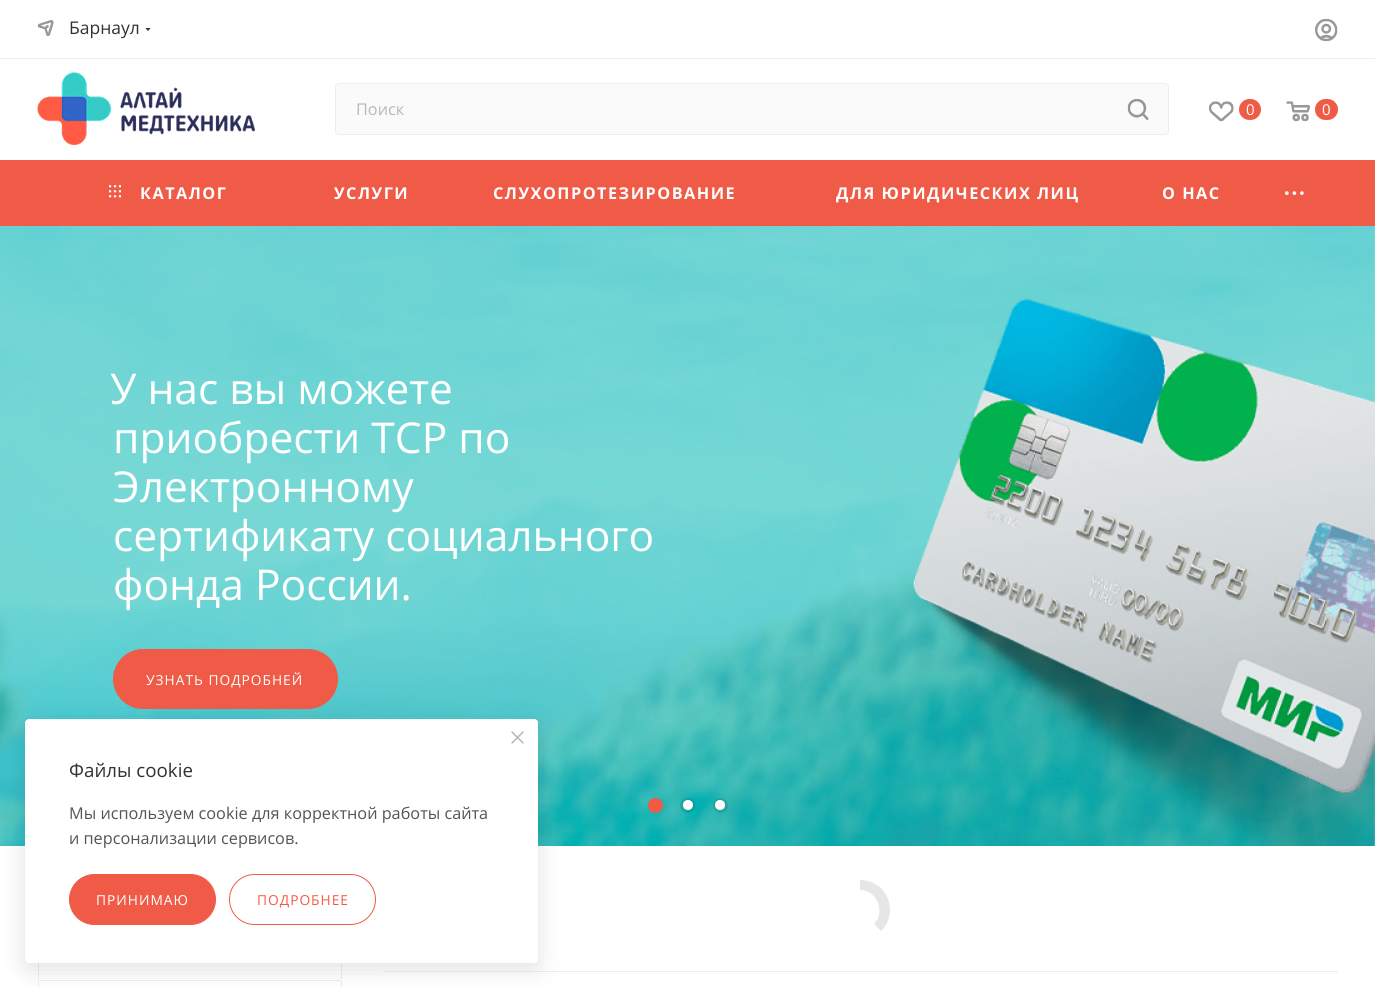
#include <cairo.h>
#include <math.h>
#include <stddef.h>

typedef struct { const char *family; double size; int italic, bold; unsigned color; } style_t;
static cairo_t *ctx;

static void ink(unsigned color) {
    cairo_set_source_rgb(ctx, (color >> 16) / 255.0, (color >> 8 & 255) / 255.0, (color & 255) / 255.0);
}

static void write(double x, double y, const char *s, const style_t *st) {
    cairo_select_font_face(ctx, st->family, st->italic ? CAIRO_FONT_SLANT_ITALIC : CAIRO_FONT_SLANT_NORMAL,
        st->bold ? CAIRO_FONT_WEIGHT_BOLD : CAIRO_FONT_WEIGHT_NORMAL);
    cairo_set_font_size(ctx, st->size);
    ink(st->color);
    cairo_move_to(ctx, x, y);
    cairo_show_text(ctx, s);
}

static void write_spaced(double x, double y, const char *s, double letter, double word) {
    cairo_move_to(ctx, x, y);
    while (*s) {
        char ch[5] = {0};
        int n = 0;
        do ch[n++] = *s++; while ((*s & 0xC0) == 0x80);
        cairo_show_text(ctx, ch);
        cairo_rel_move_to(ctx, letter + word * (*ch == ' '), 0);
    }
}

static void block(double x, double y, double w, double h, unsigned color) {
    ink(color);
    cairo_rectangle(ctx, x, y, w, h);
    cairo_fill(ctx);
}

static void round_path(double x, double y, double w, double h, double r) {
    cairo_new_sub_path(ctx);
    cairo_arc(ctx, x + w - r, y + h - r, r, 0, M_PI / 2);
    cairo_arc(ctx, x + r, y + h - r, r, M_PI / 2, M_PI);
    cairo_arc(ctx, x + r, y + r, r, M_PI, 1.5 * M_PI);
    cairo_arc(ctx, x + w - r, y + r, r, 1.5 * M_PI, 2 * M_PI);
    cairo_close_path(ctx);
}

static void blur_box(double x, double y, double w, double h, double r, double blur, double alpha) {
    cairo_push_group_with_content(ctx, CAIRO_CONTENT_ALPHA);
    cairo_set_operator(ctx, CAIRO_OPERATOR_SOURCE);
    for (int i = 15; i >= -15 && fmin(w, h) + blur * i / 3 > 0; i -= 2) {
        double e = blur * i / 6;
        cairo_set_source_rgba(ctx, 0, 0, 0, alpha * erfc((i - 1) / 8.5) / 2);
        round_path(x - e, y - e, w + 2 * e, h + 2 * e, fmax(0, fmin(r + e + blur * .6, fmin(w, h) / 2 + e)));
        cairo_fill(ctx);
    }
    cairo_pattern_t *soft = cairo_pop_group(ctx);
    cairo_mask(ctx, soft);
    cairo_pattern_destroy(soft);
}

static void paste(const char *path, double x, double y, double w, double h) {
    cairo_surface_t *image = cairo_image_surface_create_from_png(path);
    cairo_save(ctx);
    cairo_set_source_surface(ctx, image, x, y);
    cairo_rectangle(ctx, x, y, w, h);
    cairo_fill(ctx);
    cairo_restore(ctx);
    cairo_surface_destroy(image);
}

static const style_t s1 = {"Open Sans", 17.5, 0, 0, 0x333333};
static const style_t s2 = {"Open Sans", 16.25, 0, 0, 0xb8b8b8};
static const style_t s3 = {"Open Sans", 15, 0, 0, 0xffffff};
static const style_t s4 = {"Open Sans", 42.5, 0, 0, 0xffffff};
static const style_t s5 = {"Open Sans", 18.75, 0, 0, 0x333333};
static const style_t s6 = {"Open Sans", 16.25, 0, 0, 0x555555};

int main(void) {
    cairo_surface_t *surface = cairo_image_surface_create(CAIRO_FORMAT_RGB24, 1375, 987);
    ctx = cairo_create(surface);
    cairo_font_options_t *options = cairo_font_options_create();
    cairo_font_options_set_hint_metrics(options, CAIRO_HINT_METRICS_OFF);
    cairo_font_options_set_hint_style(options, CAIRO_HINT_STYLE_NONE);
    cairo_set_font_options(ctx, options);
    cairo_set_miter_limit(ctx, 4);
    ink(0xffffff);
    cairo_paint(ctx);
    block(0, 58, 1375, 1, 0xececec);
    paste("pic1.png", 37, 20, 17, 16);
    write(69, 34, "Барнаул", &s1);
    cairo_save(ctx);
    cairo_rectangle(ctx, 145, 28, 6, 4);
    cairo_clip(ctx);
    cairo_set_fill_rule(ctx, CAIRO_FILL_RULE_EVEN_ODD);
    cairo_new_path(ctx);
    cairo_move_to(ctx, 145, 27.5);
    cairo_line_to(ctx, 151, 27.5);
    cairo_line_to(ctx, 148, 31);
    cairo_close_path(ctx);
    cairo_fill(ctx);
    cairo_restore(ctx);
    paste("pic2.png", 1315, 18, 23, 24);
    paste("pic3.png", 37, 72, 218, 73);
    ink(0xfafafa);
    round_path(335.5, 83.5, 833, 51, 3.5);
    cairo_fill_preserve(ctx);
    ink(0xececec);
    cairo_set_line_width(ctx, 1);
    cairo_stroke(ctx);
    write(356, 115, "Поиск", &s2);
    paste("pic4.png", 1127, 99, 22, 21);
    paste("pic5.png", 1208, 101, 26, 21);
    ink(0xf05b47);
    round_path(1239, 99, 22, 21, 10.5);
    cairo_fill(ctx);
    write(1246, 115, "0", &s3);
    paste("pic6.png", 1286, 101, 24, 21);
    ink(0xf05b47);
    round_path(1315, 99, 23, 21, 10.5);
    cairo_fill(ctx);
    write(1322, 115, "0", &s3);
    block(0, 160, 1375, 66, 0xf05b47);
    paste("pic7.png", 109, 185, 12, 13);
    cairo_select_font_face(ctx, "Open Sans", CAIRO_FONT_SLANT_NORMAL, CAIRO_FONT_WEIGHT_BOLD);
    cairo_set_font_size(ctx, 16.25);
    ink(0xffffff);
    write_spaced(140, 199, "КАТАЛОГ", 1.5, 0);
    write_spaced(334, 199, "УСЛУГИ", 1.5, 0);
    write_spaced(493, 199, "СЛУХОПРОТЕЗИРОВАНИЕ", 1.5, 0);
    write_spaced(836, 199, "ДЛЯ ЮРИДИЧЕСКИХ ЛИЦ", 1.5, 0);
    write_spaced(1162, 199, "О НАС", 1.5, 0);
    paste("pic8.png", 1285, 191, 19, 4);
    paste("pic9.png", 0, 226, 1375, 620);
    write(110, 404, "У нас вы можете", &s4);
    write(113, 453, "приобрести ТСР по", &s4);
    write(113, 502, "Электронному", &s4);
    write(113, 551, "сертификату социального", &s4);
    write(113, 600, "фонда России.", &s4);
    ink(0xf05b47);
    round_path(113.5, 649.5, 224, 59, 29.5);
    cairo_fill_preserve(ctx);
    cairo_stroke(ctx);
    cairo_set_font_size(ctx, 13.75);
    ink(0xffffff);
    write_spaced(146, 685, "УЗНАТЬ ПОДРОБНЕЙ", 1, 0);
    paste("pic10.png", 913, 298, 462, 548);
    ink(0xf05b47);
    cairo_arc(ctx, 655.5, 805.5, 7.5, 0, 2 * M_PI);
    cairo_fill(ctx);
    cairo_set_source_rgba(ctx, 0, 0, 0, 0.1);
    cairo_arc(ctx, 687.5, 805.5, 7.5, 0, 2 * M_PI);
    cairo_fill(ctx);
    ink(0xffffff);
    cairo_arc(ctx, 688, 805, 5, 0, 2 * M_PI);
    cairo_fill(ctx);
    cairo_set_source_rgba(ctx, 0, 0, 0, 0.1);
    cairo_arc(ctx, 720.5, 805.5, 7.5, 0, 2 * M_PI);
    cairo_fill(ctx);
    ink(0xffffff);
    cairo_arc(ctx, 720, 805, 5, 0, 2 * M_PI);
    cairo_fill(ctx);
    ink(0xe6e6e6);
    cairo_new_path(ctx);
    cairo_move_to(ctx, 860, 880);
    cairo_curve_to(ctx, 887, 880, 900, 912, 881, 931);
    cairo_line_to(ctx, 874, 924);
    cairo_curve_to(ctx, 886, 912, 877, 890, 860, 890);
    cairo_close_path(ctx);
    cairo_fill(ctx);
    block(383, 971, 955, 1, 0xececec);
    block(341, 963, 1, 16, 0xececec);
    block(38, 963, 1, 16, 0xececec);
    block(39, 980, 302, 1, 0xececec);
    block(341, 981, 1, 6, 0xececec);
    block(38, 981, 1, 6, 0xececec);
    ink(0x000000);
    blur_box(25, 725, 513, 244, 4, 12.5, 0.12);
    ink(0xffffff);
    round_path(25, 719, 513, 244, 4);
    cairo_fill(ctx);
    cairo_new_path(ctx);
    cairo_move_to(ctx, 498, 719);
    cairo_line_to(ctx, 534, 719);
    cairo_curve_to(ctx, 536, 719, 538, 721, 538, 723);
    cairo_line_to(ctx, 538, 759);
    cairo_line_to(ctx, 502, 759);
    cairo_curve_to(ctx, 500, 759, 498, 757, 498, 755);
    cairo_close_path(ctx);
    cairo_fill(ctx);
    paste("pic11.png", 511, 731, 13, 13);
    write(69, 777, "Файлы cookie", &s5);
    write(69, 819, "Мы используем cookie для корректной работы сайта", &s6);
    write(69, 844, "и персонализации сервисов.", &s6);
    ink(0xf05b47);
    round_path(69.5, 874.5, 146, 50, 25);
    cairo_fill_preserve(ctx);
    cairo_stroke(ctx);
    cairo_set_font_size(ctx, 13.75);
    ink(0xffffff);
    write_spaced(96, 905, "ПРИНИМАЮ", 1, 0);
    round_path(229.5, 874.5, 146, 50, 25);
    ink(0xf05b47);
    cairo_stroke(ctx);
    write_spaced(257, 905, "ПОДРОБНЕЕ", 1, 0);
    cairo_surface_write_to_png(surface, "screenshot.png");
    cairo_font_options_destroy(options);
    cairo_destroy(ctx);
    cairo_surface_destroy(surface);
    return 0;
}
